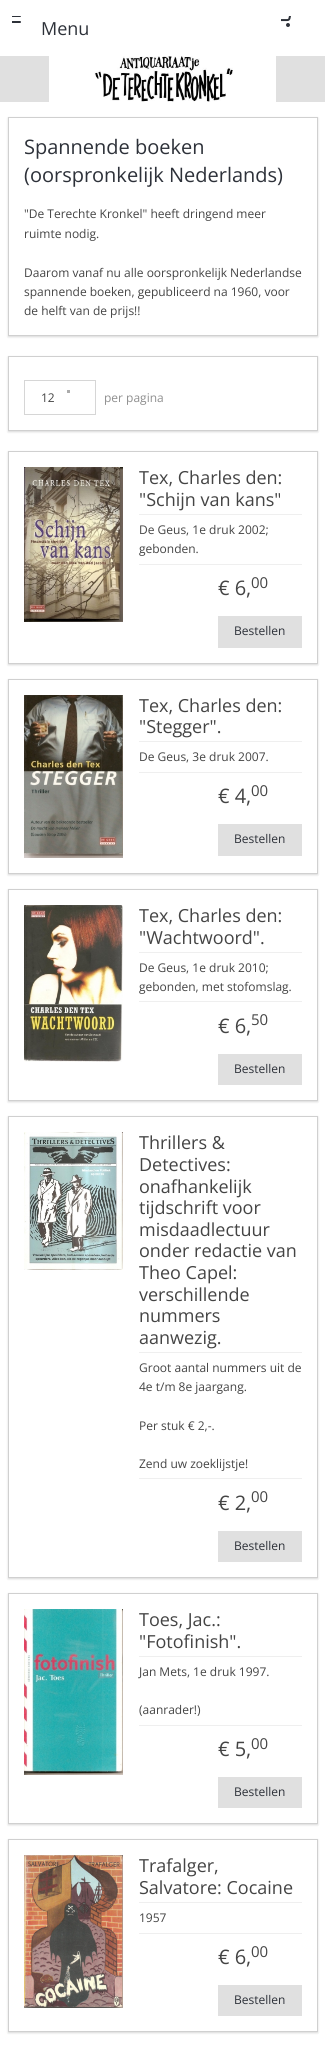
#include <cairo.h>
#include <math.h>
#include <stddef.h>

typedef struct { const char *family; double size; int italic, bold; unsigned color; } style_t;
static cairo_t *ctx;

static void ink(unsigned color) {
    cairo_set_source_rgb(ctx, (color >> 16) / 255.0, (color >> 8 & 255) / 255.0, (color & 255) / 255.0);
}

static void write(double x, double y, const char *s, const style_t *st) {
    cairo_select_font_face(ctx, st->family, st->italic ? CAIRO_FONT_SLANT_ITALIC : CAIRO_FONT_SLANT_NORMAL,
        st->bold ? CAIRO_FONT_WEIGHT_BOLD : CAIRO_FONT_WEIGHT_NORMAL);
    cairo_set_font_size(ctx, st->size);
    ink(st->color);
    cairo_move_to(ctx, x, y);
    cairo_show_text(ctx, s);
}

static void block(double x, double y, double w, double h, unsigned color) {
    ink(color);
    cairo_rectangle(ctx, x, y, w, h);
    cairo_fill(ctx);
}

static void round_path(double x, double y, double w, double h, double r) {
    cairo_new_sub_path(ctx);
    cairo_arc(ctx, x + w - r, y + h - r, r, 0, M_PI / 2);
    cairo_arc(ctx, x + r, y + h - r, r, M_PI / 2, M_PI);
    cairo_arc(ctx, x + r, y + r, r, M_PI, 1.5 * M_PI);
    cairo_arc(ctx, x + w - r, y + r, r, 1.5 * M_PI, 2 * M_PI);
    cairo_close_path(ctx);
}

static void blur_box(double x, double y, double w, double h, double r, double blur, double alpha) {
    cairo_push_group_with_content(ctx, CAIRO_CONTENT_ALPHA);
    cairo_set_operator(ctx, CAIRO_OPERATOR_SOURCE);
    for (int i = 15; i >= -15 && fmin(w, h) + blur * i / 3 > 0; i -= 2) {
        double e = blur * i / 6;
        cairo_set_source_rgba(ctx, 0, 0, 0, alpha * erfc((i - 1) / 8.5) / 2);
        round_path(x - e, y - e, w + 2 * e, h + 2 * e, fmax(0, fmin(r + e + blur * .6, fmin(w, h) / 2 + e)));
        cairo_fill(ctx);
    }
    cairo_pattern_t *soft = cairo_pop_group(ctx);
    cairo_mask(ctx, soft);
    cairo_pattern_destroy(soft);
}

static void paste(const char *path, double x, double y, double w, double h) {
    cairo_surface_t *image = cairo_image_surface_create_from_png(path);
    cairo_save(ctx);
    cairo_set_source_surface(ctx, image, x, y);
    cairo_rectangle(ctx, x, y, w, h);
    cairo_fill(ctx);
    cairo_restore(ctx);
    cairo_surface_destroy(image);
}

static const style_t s1 = {"Open Sans", 18, 0, 0, 0x2d3139};
static const style_t s2 = {"Open Sans", 20, 0, 0, 0x2d3139};
static const style_t s3 = {"Open Sans", 12, 0, 0, 0x444444};
static const style_t s4 = {"Open Sans", 12, 0, 0, 0x8f8f8f};
static const style_t s5 = {"Open Sans", 18, 0, 0, 0x444444};
static const style_t s6 = {"Open Sans", 20, 0, 0, 0x444444};
static const style_t s7 = {"Open Sans", 15, 0, 0, 0x444444};
static const style_t s8 = {"Open Sans", 12, 0, 0, 0x2d3139};

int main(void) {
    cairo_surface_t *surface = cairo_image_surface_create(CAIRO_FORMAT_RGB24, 325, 2047);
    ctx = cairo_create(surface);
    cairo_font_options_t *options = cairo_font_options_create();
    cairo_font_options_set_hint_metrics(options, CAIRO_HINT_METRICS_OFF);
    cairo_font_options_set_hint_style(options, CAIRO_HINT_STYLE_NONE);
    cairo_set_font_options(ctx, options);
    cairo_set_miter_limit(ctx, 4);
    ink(0xe0e0e0);
    cairo_paint(ctx);
    block(0, 0, 325, 56, 0xffffff);
    paste("pic1.png", 12, 16, 9, 7);
    write(41, 35, "Menu", &s1);
    paste("pic2.png", 281, 16, 10, 11);
    paste("pic3.png", 49, 56, 227, 46);
    block(0, 102, 325, 1945, 0xffffff);
    cairo_save(ctx);
    cairo_set_fill_rule(ctx, CAIRO_FILL_RULE_EVEN_ODD);
    cairo_new_path(ctx);
    cairo_move_to(ctx, 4, 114);
    cairo_line_to(ctx, 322, 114);
    cairo_line_to(ctx, 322, 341);
    cairo_line_to(ctx, 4, 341);
    cairo_close_path(ctx);
    cairo_move_to(ctx, 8, 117);
    cairo_line_to(ctx, 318, 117);
    cairo_line_to(ctx, 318, 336);
    cairo_line_to(ctx, 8, 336);
    cairo_close_path(ctx);
    cairo_clip(ctx);
    ink(0x000000);
    blur_box(8, 118, 310, 219, 0, 1, 0.15);
    cairo_restore(ctx);
    cairo_rectangle(ctx, 8.5, 117.5, 309, 218);
    ink(0xd0d0d0);
    cairo_set_line_width(ctx, 1);
    cairo_stroke(ctx);
    write(24, 154, "Spannende boeken", &s2);
    write(24, 182, "(oorspronkelijk Nederlands)", &s2);
    write(24, 218, "\"De Terechte Kronkel\" heeft dringend meer", &s3);
    write(24, 238, "ruimte nodig.", &s3);
    write(24, 277, "Daarom vanaf nu alle oorspronkelijk Nederlandse", &s3);
    write(24, 296, "spannende boeken, gepubliceerd na 1960, voor", &s3);
    write(24, 315, "de helft van de prijs!!", &s3);
    cairo_save(ctx);
    cairo_set_fill_rule(ctx, CAIRO_FILL_RULE_EVEN_ODD);
    cairo_new_path(ctx);
    cairo_move_to(ctx, 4, 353);
    cairo_line_to(ctx, 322, 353);
    cairo_line_to(ctx, 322, 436);
    cairo_line_to(ctx, 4, 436);
    cairo_close_path(ctx);
    cairo_move_to(ctx, 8, 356);
    cairo_line_to(ctx, 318, 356);
    cairo_line_to(ctx, 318, 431);
    cairo_line_to(ctx, 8, 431);
    cairo_close_path(ctx);
    cairo_clip(ctx);
    ink(0x000000);
    blur_box(8, 357, 310, 75, 0, 1, 0.15);
    cairo_restore(ctx);
    cairo_rectangle(ctx, 8.5, 356.5, 309, 74);
    ink(0xd0d0d0);
    cairo_stroke(ctx);
    cairo_rectangle(ctx, 24.5, 380.5, 71, 34);
    ink(0xd6d6d6);
    cairo_stroke(ctx);
    block(67, 390, 3, 3, 0xababab);
    write(41, 402, "12", &s3);
    write(104, 402, "per pagina", &s4);
    cairo_save(ctx);
    cairo_set_fill_rule(ctx, CAIRO_FILL_RULE_EVEN_ODD);
    cairo_new_path(ctx);
    cairo_move_to(ctx, 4, 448);
    cairo_line_to(ctx, 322, 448);
    cairo_line_to(ctx, 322, 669);
    cairo_line_to(ctx, 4, 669);
    cairo_close_path(ctx);
    cairo_move_to(ctx, 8, 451);
    cairo_line_to(ctx, 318, 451);
    cairo_line_to(ctx, 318, 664);
    cairo_line_to(ctx, 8, 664);
    cairo_close_path(ctx);
    cairo_clip(ctx);
    ink(0x000000);
    blur_box(8, 452, 310, 213, 0, 1, 0.15);
    cairo_restore(ctx);
    cairo_rectangle(ctx, 8.5, 451.5, 309, 212);
    ink(0xd0d0d0);
    cairo_stroke(ctx);
    paste("pic4.png", 24, 467, 99, 155);
    block(139, 514, 163, 1, 0xefefef);
    write(139, 484, "Tex, Charles den:", &s5);
    write(139, 506, "\"Schijn van kans\"", &s5);
    block(139, 564, 163, 1, 0xefefef);
    write(139, 534, "De Geus, 1e druk 2002;", &s3);
    write(139, 553, "gebonden.", &s3);
    write(218, 595, "€ 6,", &s6);
    write(251, 588, "00", &s7);
    block(218, 616, 84, 32, 0xe0e0e0);
    write(234, 635, "Bestellen", &s8);
    cairo_save(ctx);
    cairo_set_fill_rule(ctx, CAIRO_FILL_RULE_EVEN_ODD);
    cairo_new_path(ctx);
    cairo_move_to(ctx, 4, 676);
    cairo_line_to(ctx, 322, 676);
    cairo_line_to(ctx, 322, 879);
    cairo_line_to(ctx, 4, 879);
    cairo_close_path(ctx);
    cairo_move_to(ctx, 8, 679);
    cairo_line_to(ctx, 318, 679);
    cairo_line_to(ctx, 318, 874);
    cairo_line_to(ctx, 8, 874);
    cairo_close_path(ctx);
    cairo_clip(ctx);
    ink(0x000000);
    blur_box(8, 680, 310, 195, 0, 1, 0.15);
    cairo_restore(ctx);
    cairo_rectangle(ctx, 8.5, 679.5, 309, 194);
    ink(0xd0d0d0);
    cairo_stroke(ctx);
    paste("pic5.png", 24, 695, 99, 163);
    block(139, 741, 163, 1, 0xefefef);
    write(139, 712, "Tex, Charles den:", &s5);
    write(139, 733, "\"Stegger\".", &s5);
    block(139, 772, 163, 1, 0xefefef);
    write(139, 761, "De Geus, 3e druk 2007.", &s3);
    write(218, 803, "€ 4,", &s6);
    write(251, 796, "00", &s7);
    block(218, 824, 84, 32, 0xe0e0e0);
    write(234, 843, "Bestellen", &s8);
    cairo_save(ctx);
    cairo_set_fill_rule(ctx, CAIRO_FILL_RULE_EVEN_ODD);
    cairo_new_path(ctx);
    cairo_move_to(ctx, 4, 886);
    cairo_line_to(ctx, 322, 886);
    cairo_line_to(ctx, 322, 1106);
    cairo_line_to(ctx, 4, 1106);
    cairo_close_path(ctx);
    cairo_move_to(ctx, 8, 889);
    cairo_line_to(ctx, 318, 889);
    cairo_line_to(ctx, 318, 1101);
    cairo_line_to(ctx, 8, 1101);
    cairo_close_path(ctx);
    cairo_clip(ctx);
    ink(0x000000);
    blur_box(8, 890, 310, 212, 0, 1, 0.15);
    cairo_restore(ctx);
    cairo_rectangle(ctx, 8.5, 889.5, 309, 211);
    ink(0xd0d0d0);
    cairo_stroke(ctx);
    paste("pic6.png", 24, 905, 99, 157);
    block(139, 952, 163, 1, 0xefefef);
    write(139, 922, "Tex, Charles den:", &s5);
    write(139, 944, "\"Wachtwoord\".", &s5);
    block(139, 1001, 163, 1, 0xefefef);
    write(139, 972, "De Geus, 1e druk 2010;", &s3);
    write(139, 991, "gebonden, met stofomslag.", &s3);
    write(218, 1033, "€ 6,", &s6);
    write(251, 1025, "50", &s7);
    block(218, 1054, 84, 31, 0xe0e0e0);
    write(234, 1073, "Bestellen", &s8);
    cairo_save(ctx);
    cairo_set_fill_rule(ctx, CAIRO_FILL_RULE_EVEN_ODD);
    cairo_new_path(ctx);
    cairo_move_to(ctx, 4, 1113);
    cairo_line_to(ctx, 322, 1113);
    cairo_line_to(ctx, 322, 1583);
    cairo_line_to(ctx, 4, 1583);
    cairo_close_path(ctx);
    cairo_move_to(ctx, 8, 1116);
    cairo_line_to(ctx, 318, 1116);
    cairo_line_to(ctx, 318, 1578);
    cairo_line_to(ctx, 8, 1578);
    cairo_close_path(ctx);
    cairo_clip(ctx);
    ink(0x000000);
    blur_box(8, 1117, 310, 462, 0, 1, 0.15);
    cairo_restore(ctx);
    cairo_rectangle(ctx, 8.5, 1116.5, 309, 461);
    ink(0xd0d0d0);
    cairo_stroke(ctx);
    paste("pic7.png", 24, 1132, 99, 138);
    block(139, 1352, 163, 1, 0xefefef);
    write(139, 1149, "Thrillers &", &s5);
    write(139, 1171, "Detectives:", &s5);
    write(139, 1193, "onafhankelijk", &s5);
    write(139, 1214, "tijdschrift voor", &s5);
    write(139, 1236, "misdaadlectuur", &s5);
    write(139, 1257, "onder redactie van", &s5);
    write(139, 1279, "Theo Capel:", &s5);
    write(139, 1301, "verschillende", &s5);
    write(139, 1322, "nummers", &s5);
    write(139, 1344, "aanwezig.", &s5);
    block(139, 1478, 163, 1, 0xefefef);
    write(139, 1372, "Groot aantal nummers uit de", &s3);
    write(139, 1391, "4e t/m 8e jaargang.", &s3);
    write(139, 1430, "Per stuk € 2,-.", &s3);
    write(139, 1468, "Zend uw zoeklijstje!", &s3);
    write(218, 1510, "€ 2,", &s6);
    write(251, 1502, "00", &s7);
    block(218, 1531, 84, 31, 0xe0e0e0);
    write(234, 1550, "Bestellen", &s8);
    cairo_save(ctx);
    cairo_set_fill_rule(ctx, CAIRO_FILL_RULE_EVEN_ODD);
    cairo_new_path(ctx);
    cairo_move_to(ctx, 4, 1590);
    cairo_line_to(ctx, 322, 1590);
    cairo_line_to(ctx, 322, 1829);
    cairo_line_to(ctx, 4, 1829);
    cairo_close_path(ctx);
    cairo_move_to(ctx, 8, 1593);
    cairo_line_to(ctx, 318, 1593);
    cairo_line_to(ctx, 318, 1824);
    cairo_line_to(ctx, 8, 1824);
    cairo_close_path(ctx);
    cairo_clip(ctx);
    ink(0x000000);
    blur_box(8, 1594, 310, 231, 0, 1, 0.15);
    cairo_restore(ctx);
    cairo_rectangle(ctx, 8.5, 1593.5, 309, 230);
    ink(0xd0d0d0);
    cairo_stroke(ctx);
    paste("pic8.png", 24, 1609, 99, 166);
    block(139, 1656, 163, 1, 0xefefef);
    write(139, 1626, "Toes, Jac.:", &s5);
    write(139, 1648, "\"Fotofinish\".", &s5);
    block(139, 1725, 163, 1, 0xefefef);
    write(139, 1676, "Jan Mets, 1e druk 1997.", &s3);
    write(139, 1714, "(aanrader!)", &s3);
    write(218, 1756, "€ 5,", &s6);
    write(251, 1749, "00", &s7);
    block(218, 1777, 84, 31, 0xe0e0e0);
    write(234, 1796, "Bestellen", &s8);
    cairo_save(ctx);
    cairo_set_fill_rule(ctx, CAIRO_FILL_RULE_EVEN_ODD);
    cairo_new_path(ctx);
    cairo_move_to(ctx, 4, 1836);
    cairo_line_to(ctx, 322, 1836);
    cairo_line_to(ctx, 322, 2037);
    cairo_line_to(ctx, 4, 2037);
    cairo_close_path(ctx);
    cairo_move_to(ctx, 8, 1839);
    cairo_line_to(ctx, 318, 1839);
    cairo_line_to(ctx, 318, 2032);
    cairo_line_to(ctx, 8, 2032);
    cairo_close_path(ctx);
    cairo_clip(ctx);
    ink(0x000000);
    blur_box(8, 1840, 310, 193, 0, 1, 0.15);
    cairo_restore(ctx);
    cairo_rectangle(ctx, 8.5, 1839.5, 309, 192);
    ink(0xd0d0d0);
    cairo_stroke(ctx);
    paste("pic9.png", 24, 1855, 99, 153);
    block(139, 1902, 163, 1, 0xefefef);
    write(139, 1872, "Trafalger,", &s5);
    write(139, 1894, "Salvatore: Cocaine", &s5);
    block(139, 1933, 163, 1, 0xefefef);
    write(139, 1922, "1957", &s3);
    write(218, 1964, "€ 6,", &s6);
    write(251, 1957, "00", &s7);
    block(218, 1985, 84, 31, 0xe0e0e0);
    write(234, 2004, "Bestellen", &s8);
    cairo_surface_write_to_png(surface, "screenshot.png");
    cairo_font_options_destroy(options);
    cairo_destroy(ctx);
    cairo_surface_destroy(surface);
    return 0;
}
